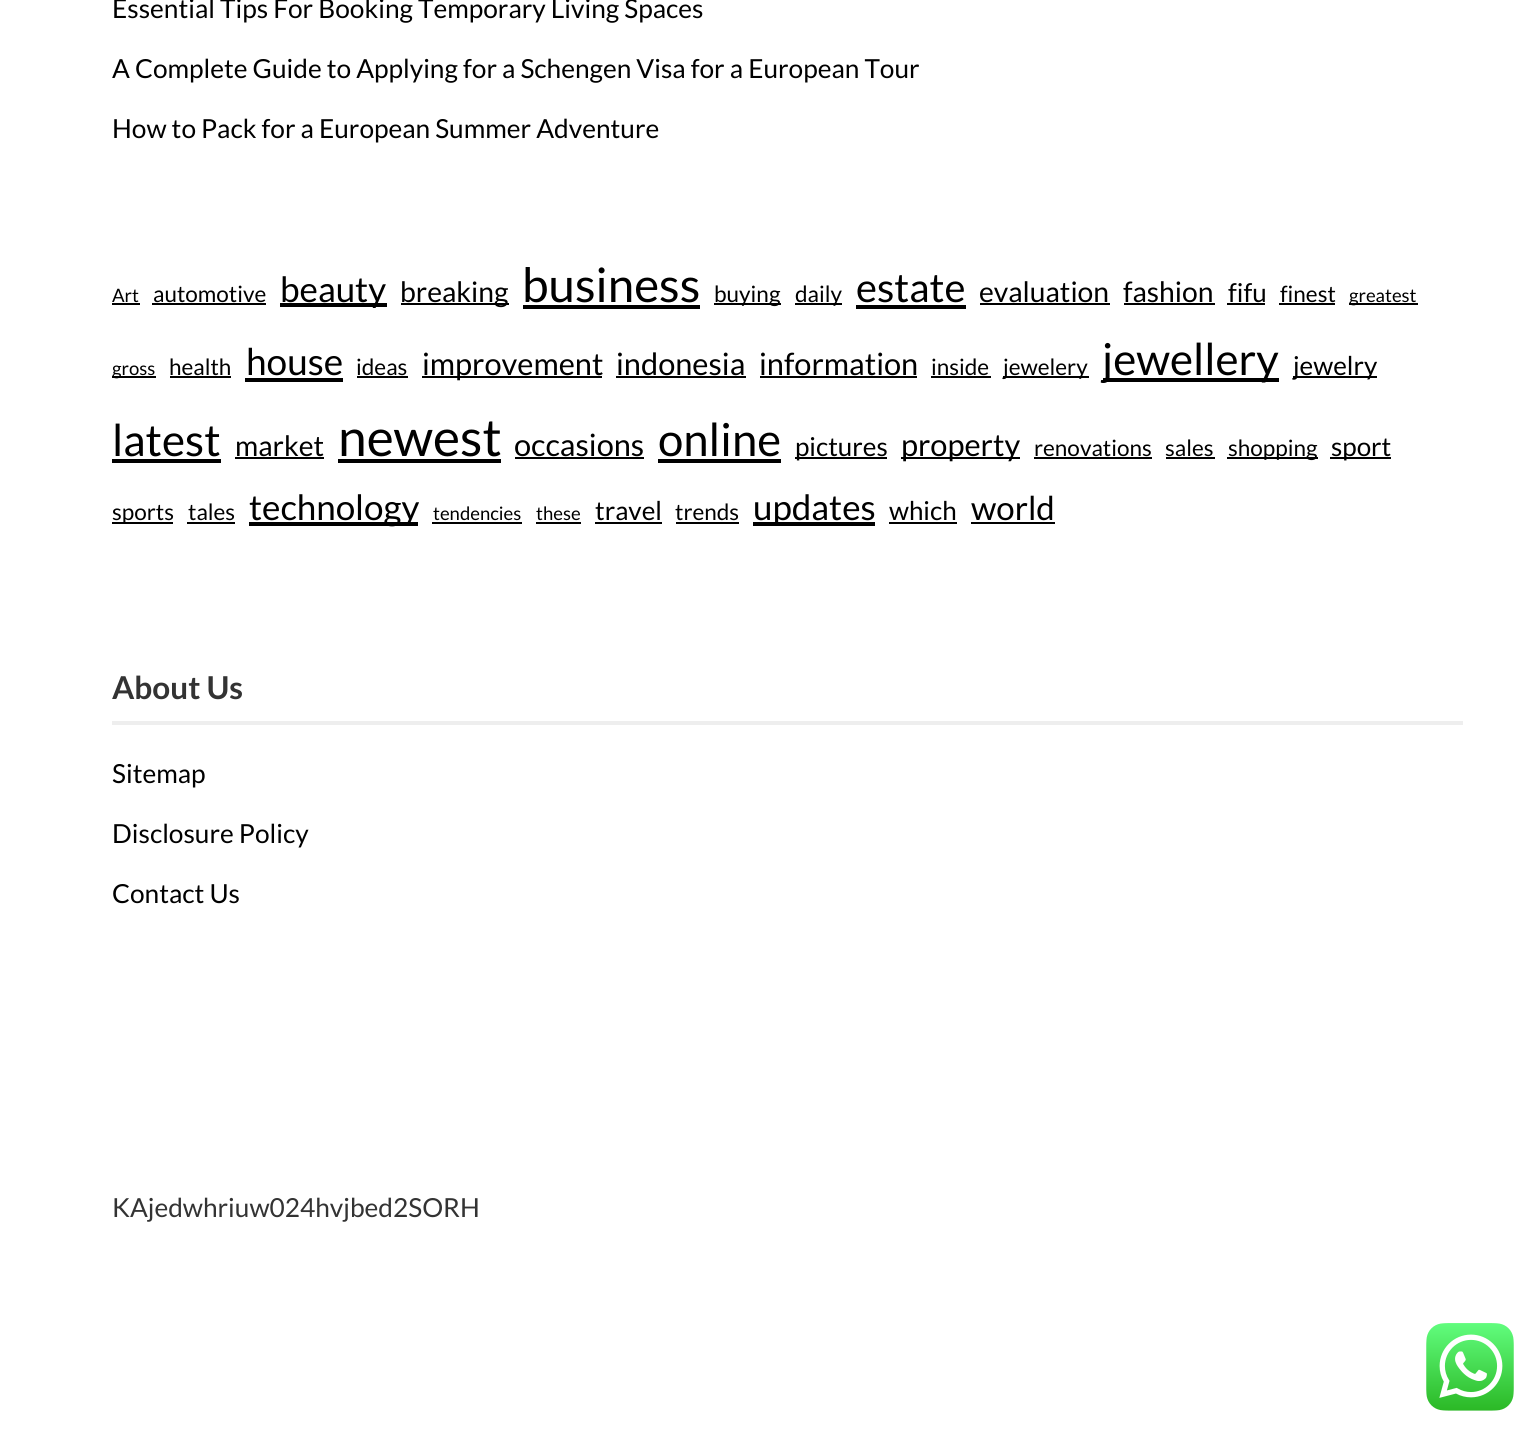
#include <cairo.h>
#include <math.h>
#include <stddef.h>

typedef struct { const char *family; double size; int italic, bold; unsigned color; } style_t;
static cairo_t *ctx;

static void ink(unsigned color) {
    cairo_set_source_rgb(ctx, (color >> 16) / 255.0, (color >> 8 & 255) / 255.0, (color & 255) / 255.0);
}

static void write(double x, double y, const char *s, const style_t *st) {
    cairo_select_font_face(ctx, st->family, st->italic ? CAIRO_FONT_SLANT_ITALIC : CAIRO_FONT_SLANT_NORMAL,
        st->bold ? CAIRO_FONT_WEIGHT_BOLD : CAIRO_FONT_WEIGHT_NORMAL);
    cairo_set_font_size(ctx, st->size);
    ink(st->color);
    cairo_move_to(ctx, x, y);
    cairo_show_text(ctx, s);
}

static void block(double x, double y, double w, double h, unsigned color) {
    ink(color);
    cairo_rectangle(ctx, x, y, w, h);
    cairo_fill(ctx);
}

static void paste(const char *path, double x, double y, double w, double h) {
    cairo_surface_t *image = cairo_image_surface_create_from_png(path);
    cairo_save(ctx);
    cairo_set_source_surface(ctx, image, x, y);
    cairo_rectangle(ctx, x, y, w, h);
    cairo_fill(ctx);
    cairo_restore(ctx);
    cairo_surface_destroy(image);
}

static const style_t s1 = {"Lato", 26.25, 0, 0, 0x000000};
static const style_t s2 = {"Lato", 18.5, 0, 0, 0x000000};
static const style_t s3 = {"Lato", 22.5, 0, 0, 0x000000};
static const style_t s4 = {"Lato", 35, 0, 0, 0x000000};
static const style_t s5 = {"Lato", 28.25, 0, 0, 0x000000};
static const style_t s6 = {"Lato", 47.5, 0, 0, 0x000000};
static const style_t s7 = {"Lato", 40, 0, 0, 0x000000};
static const style_t s8 = {"Lato", 26, 0, 0, 0x000000};
static const style_t s9 = {"Lato", 37, 0, 0, 0x000000};
static const style_t s10 = {"Lato", 30.75, 0, 0, 0x000000};
static const style_t s11 = {"Lato", 44, 0, 0, 0x000000};
static const style_t s12 = {"Lato", 51.5, 0, 0, 0x000000};
static const style_t s13 = {"Lato", 45.5, 0, 0, 0x000000};
static const style_t s14 = {"Lato", 33, 0, 0, 0x000000};
static const style_t s15 = {"Lato", 31.5, 0, 1, 0x333333};
static const style_t s16 = {"Lato", 26.25, 0, 0, 0x333333};

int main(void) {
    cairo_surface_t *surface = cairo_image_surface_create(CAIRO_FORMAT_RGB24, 1540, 1436);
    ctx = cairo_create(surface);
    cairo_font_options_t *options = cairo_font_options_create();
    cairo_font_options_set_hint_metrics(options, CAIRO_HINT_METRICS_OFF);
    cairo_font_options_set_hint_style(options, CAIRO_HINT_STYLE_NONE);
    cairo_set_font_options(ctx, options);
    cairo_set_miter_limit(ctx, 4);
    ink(0xffffff);
    cairo_paint(ctx);
    write(112, 18, "Essential Tips For Booking Temporary Living Spaces", &s1);
    write(112, 78, "A Complete Guide to Applying for a Schengen Visa for a European Tour", &s1);
    write(112, 138, "How to Pack for a European Summer Adventure", &s1);
    write(112, 302, "Art", &s2);
    block(112, 303, 28, 2, 0x000000);
    write(153, 302, "automotive", &s3);
    block(152, 303, 114, 2, 0x000000);
    block(280, 303, 107, 4, 0x000000);
    write(280, 302, "beauty", &s4);
    block(401, 303, 108, 2, 0x000000);
    write(400, 302, "breaking", &s5);
    write(522, 302, "business", &s6);
    block(523, 305, 177, 4, 0x000000);
    block(714, 303, 67, 2, 0x000000);
    write(714, 302, "buying", &s3);
    block(795, 303, 47, 2, 0x000000);
    write(795, 302, "daily", &s3);
    write(856, 302, "estate", &s7);
    block(856, 305, 110, 4, 0x000000);
    write(979, 302, "evaluation", &s5);
    block(980, 303, 130, 2, 0x000000);
    write(1123, 302, "fashion", &s5);
    block(1124, 303, 91, 2, 0x000000);
    write(1228, 302, "fifu", &s8);
    block(1227, 303, 38, 2, 0x000000);
    write(1280, 302, "finest", &s3);
    block(1279, 303, 56, 2, 0x000000);
    block(1349, 303, 69, 2, 0x000000);
    write(1349, 302, "greatest", &s2);
    block(112, 376, 44, 2, 0x000000);
    write(112, 375, "gross", &s2);
    write(169, 375, "health", &s3);
    block(170, 376, 61, 2, 0x000000);
    write(246, 375, "house", &s9);
    block(245, 378, 98, 4, 0x000000);
    write(356, 375, "ideas", &s3);
    block(357, 376, 51, 2, 0x000000);
    block(422, 376, 180, 2, 0x000000);
    write(422, 375, "improvement", &s10);
    write(616, 375, "indonesia", &s10);
    block(616, 376, 130, 2, 0x000000);
    write(759, 375, "information", &s10);
    block(760, 376, 157, 2, 0x000000);
    write(931, 375, "inside", &s3);
    block(931, 376, 60, 2, 0x000000);
    block(1003, 376, 86, 2, 0x000000);
    write(1003, 375, "jewelery", &s3);
    block(1103, 378, 176, 4, 0x000000);
    write(1102, 375, "jewellery", &s11);
    block(1293, 376, 84, 2, 0x000000);
    write(1293, 375, "jewelry", &s8);
    write(112, 456, "latest", &s11);
    block(112, 459, 109, 4, 0x000000);
    write(235, 456, "market", &s5);
    block(235, 457, 89, 2, 0x000000);
    write(338, 456, "newest", &s12);
    block(338, 459, 163, 4, 0x000000);
    write(514, 456, "occasions", &s10);
    block(515, 457, 129, 2, 0x000000);
    write(658, 456, "online", &s13);
    block(658, 459, 123, 4, 0x000000);
    block(795, 457, 92, 2, 0x000000);
    write(795, 456, "pictures", &s8);
    block(901, 457, 119, 2, 0x000000);
    write(901, 456, "property", &s10);
    write(1034, 456, "renovations", &s3);
    block(1034, 457, 118, 2, 0x000000);
    write(1165, 456, "sales", &s3);
    block(1166, 457, 49, 2, 0x000000);
    block(1227, 457, 91, 2, 0x000000);
    write(1228, 456, "shopping", &s3);
    block(1330, 457, 61, 2, 0x000000);
    write(1331, 456, "sport", &s8);
    block(112, 522, 61, 2, 0x000000);
    write(112, 520, "sports", &s3);
    write(188, 520, "tales", &s3);
    block(187, 522, 48, 2, 0x000000);
    block(249, 522, 169, 4, 0x000000);
    write(249, 520, "technology", &s4);
    write(433, 520, "tendencies", &s2);
    block(432, 522, 90, 2, 0x000000);
    write(536, 520, "these", &s2);
    block(536, 522, 45, 2, 0x000000);
    write(595, 520, "travel", &s8);
    block(595, 522, 67, 2, 0x000000);
    write(675, 520, "trends", &s3);
    block(676, 522, 63, 2, 0x000000);
    block(753, 522, 122, 4, 0x000000);
    write(753, 520, "updates", &s4);
    write(889, 520, "which", &s8);
    block(889, 522, 68, 2, 0x000000);
    write(971, 520, "world", &s14);
    block(971, 522, 84, 2, 0x000000);
    block(112, 721, 1351, 4, 0xeeeeee);
    write(112, 699, "About Us", &s15);
    write(112, 783, "Sitemap", &s1);
    write(112, 843, "Disclosure Policy", &s1);
    write(112, 903, "Contact Us", &s1);
    write(112, 1217, "KAjedwhriuw024hvjbed2SORH", &s16);
    paste("pic1.png", 1426, 1323, 88, 88);
    cairo_surface_write_to_png(surface, "screenshot.png");
    cairo_font_options_destroy(options);
    cairo_destroy(ctx);
    cairo_surface_destroy(surface);
    return 0;
}
